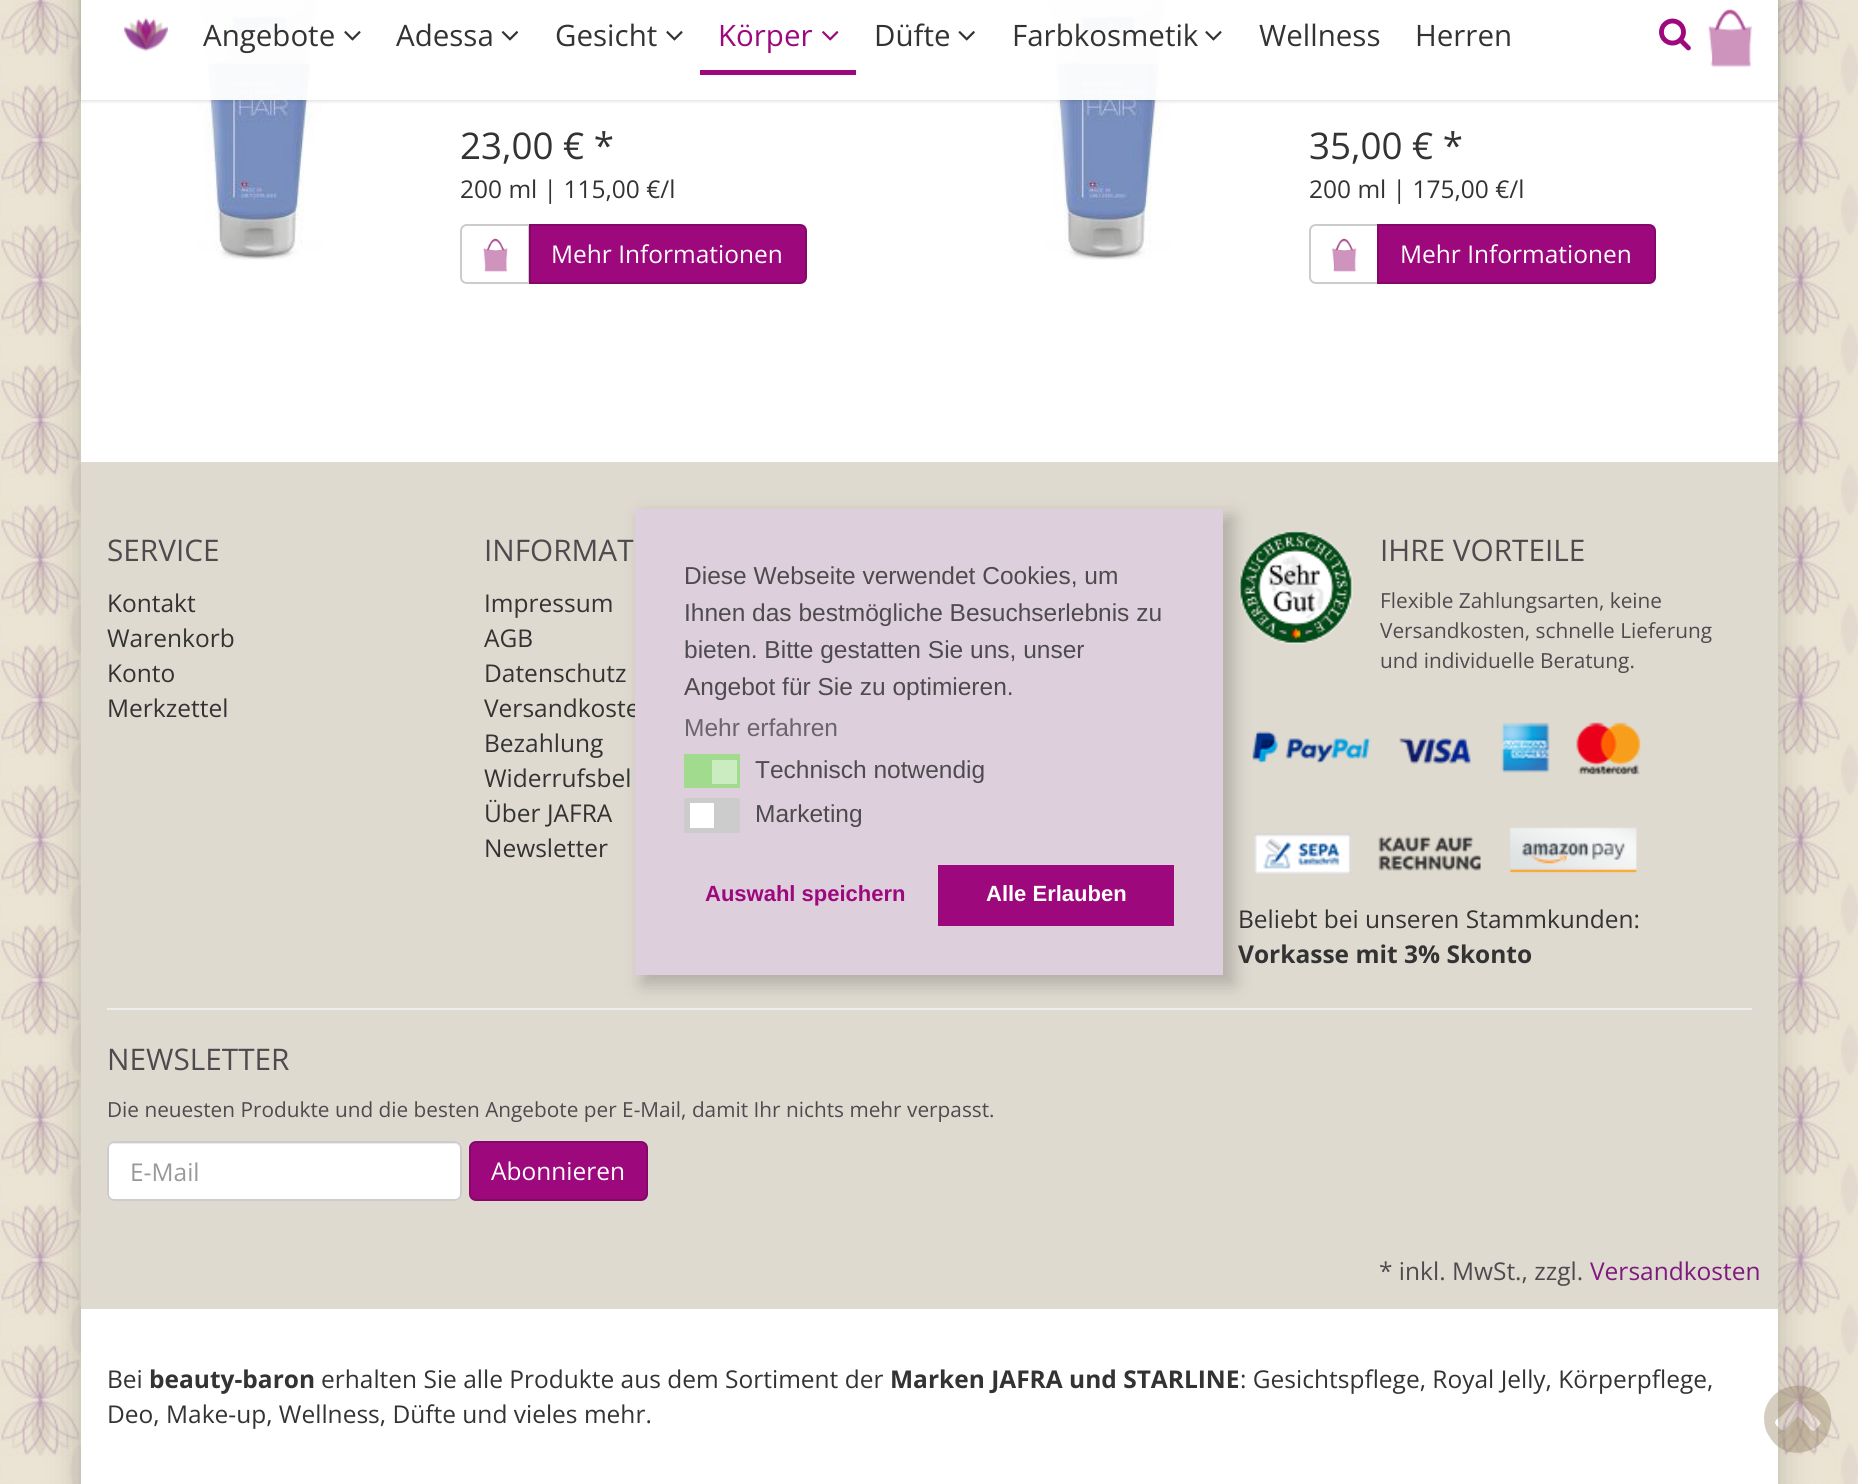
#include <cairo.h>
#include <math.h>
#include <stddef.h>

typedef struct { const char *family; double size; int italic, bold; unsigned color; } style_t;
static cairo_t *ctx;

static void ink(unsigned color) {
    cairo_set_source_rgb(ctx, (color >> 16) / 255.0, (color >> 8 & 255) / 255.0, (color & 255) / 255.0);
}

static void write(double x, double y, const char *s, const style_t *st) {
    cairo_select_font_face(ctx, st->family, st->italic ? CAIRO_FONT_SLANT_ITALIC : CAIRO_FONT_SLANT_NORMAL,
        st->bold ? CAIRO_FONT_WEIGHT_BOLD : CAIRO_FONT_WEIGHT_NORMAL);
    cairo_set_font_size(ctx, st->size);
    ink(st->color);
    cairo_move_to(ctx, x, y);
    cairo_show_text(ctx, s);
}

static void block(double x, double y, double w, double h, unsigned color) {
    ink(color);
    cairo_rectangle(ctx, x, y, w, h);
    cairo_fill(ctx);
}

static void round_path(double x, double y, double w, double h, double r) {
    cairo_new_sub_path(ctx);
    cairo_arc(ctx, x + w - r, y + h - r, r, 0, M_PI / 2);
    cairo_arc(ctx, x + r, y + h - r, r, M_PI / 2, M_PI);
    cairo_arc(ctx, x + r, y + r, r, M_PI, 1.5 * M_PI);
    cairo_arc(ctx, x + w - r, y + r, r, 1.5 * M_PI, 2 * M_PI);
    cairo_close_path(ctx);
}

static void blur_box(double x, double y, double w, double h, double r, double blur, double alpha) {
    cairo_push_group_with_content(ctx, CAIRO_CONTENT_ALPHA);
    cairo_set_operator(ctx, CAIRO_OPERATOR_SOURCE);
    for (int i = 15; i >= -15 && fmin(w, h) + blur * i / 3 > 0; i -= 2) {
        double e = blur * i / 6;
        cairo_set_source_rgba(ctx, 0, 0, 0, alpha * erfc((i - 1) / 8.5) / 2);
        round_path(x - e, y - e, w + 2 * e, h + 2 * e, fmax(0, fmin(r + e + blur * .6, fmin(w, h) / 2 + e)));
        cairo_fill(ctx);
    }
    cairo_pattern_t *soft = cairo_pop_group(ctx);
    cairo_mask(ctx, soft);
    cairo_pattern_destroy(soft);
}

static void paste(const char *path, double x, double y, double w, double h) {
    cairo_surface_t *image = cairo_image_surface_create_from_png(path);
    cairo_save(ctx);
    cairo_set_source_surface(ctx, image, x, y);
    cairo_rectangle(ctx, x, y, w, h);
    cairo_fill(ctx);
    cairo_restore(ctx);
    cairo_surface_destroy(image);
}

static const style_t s1 = {"Open Sans", 29.5, 0, 0, 0x333333};
static const style_t s2 = {"Open Sans", 29.5, 0, 0, 0x9d087d};
static const style_t s3 = {"Open Sans", 36.75, 0, 0, 0x333333};
static const style_t s4 = {"Open Sans", 24.5, 0, 0, 0x333333};
static const style_t s5 = {"Open Sans", 24.5, 0, 0, 0xffffff};
static const style_t s6 = {"Open Sans", 29.75, 0, 0, 0x4e4b4f};
static const style_t s7 = {"Open Sans", 20.8, 0, 0, 0x4e4b4f};
static const style_t s8 = {"Open Sans", 24.5, 0, 1, 0x333333};
static const style_t s9 = {"Open Sans", 24.5, 0, 0, 0x999999};
static const style_t s10 = {"Open Sans", 24.5, 0, 0, 0x4e4b4f};
static const style_t s11 = {"Open Sans", 24.5, 0, 0, 0x7e197e};
static const style_t s12 = {"Liberation Sans", 24.5, 0, 0, 0x4e4b4f};
static const style_t s13 = {"Liberation Sans", 24.5, 0, 0, 0x6b656b};
static const style_t s14 = {"Liberation Sans", 22, 0, 1, 0x9d087d};
static const style_t s15 = {"Liberation Sans", 22, 0, 1, 0xffffff};

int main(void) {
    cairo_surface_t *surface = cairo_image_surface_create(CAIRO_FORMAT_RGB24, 1858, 1484);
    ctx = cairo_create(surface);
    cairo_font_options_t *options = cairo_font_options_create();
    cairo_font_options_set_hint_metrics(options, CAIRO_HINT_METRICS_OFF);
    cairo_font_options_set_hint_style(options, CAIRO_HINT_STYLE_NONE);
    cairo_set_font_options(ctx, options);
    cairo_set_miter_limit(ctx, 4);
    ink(0xffffff);
    cairo_paint(ctx);
    paste("pic1.png", 0, 0, 1858, 1484);
    ink(0x000000);
    blur_box(81, -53, 1697, 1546, 0, 17.5, 0.2);
    block(81, 0, 1697, 462, 0xffffff);
    paste("pic10.png", 197, 0, 126, 260);
    paste("pic12.png", 1045, 0, 125, 260);
    cairo_save(ctx);
    cairo_set_fill_rule(ctx, CAIRO_FILL_RULE_EVEN_ODD);
    cairo_new_path(ctx);
    cairo_move_to(ctx, 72, 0);
    cairo_line_to(ctx, 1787, 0);
    cairo_line_to(ctx, 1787, 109);
    cairo_line_to(ctx, 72, 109);
    cairo_close_path(ctx);
    cairo_move_to(ctx, 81, 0);
    cairo_line_to(ctx, 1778, 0);
    cairo_line_to(ctx, 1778, 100);
    cairo_line_to(ctx, 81, 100);
    cairo_close_path(ctx);
    cairo_clip(ctx);
    ink(0x000000);
    blur_box(81, 0, 1697, 100, 0, 2.5, 0.2);
    cairo_restore(ctx);
    cairo_set_source_rgba(ctx, 1, 1, 1, 0.95);
    cairo_rectangle(ctx, 81, 0, 1697, 100);
    cairo_fill(ctx);
    paste("pic2.png", 124, 17, 44, 35);
    write(203, 46, "Angebote", &s1);
    paste("pic3.png", 344, 31, 17, 10);
    write(396, 46, "Adessa", &s1);
    paste("pic4.png", 501, 31, 18, 10);
    write(555, 46, "Gesicht", &s1);
    paste("pic5.png", 666, 31, 17, 10);
    block(700, 70, 156, 5, 0x9d087d);
    write(718, 46, "Körper", &s2);
    paste("pic6.png", 822, 31, 17, 10);
    write(874, 46, "Düfte", &s1);
    paste("pic7.png", 958, 31, 17, 10);
    write(1012, 46, "Farbkosmetik", &s1);
    paste("pic3.png", 1205, 31, 17, 10);
    write(1259, 46, "Wellness", &s1);
    write(1415, 46, "Herren", &s1);
    paste("pic8.png", 1659, 18, 32, 33);
    paste("pic9.png", 1708, 8, 44, 59);
    write(460, 159, "23,00 € *", &s3);
    write(460, 198, "200 ml | 115,00 €/l", &s4);
    cairo_new_path(ctx);
    cairo_move_to(ctx, 467, 225);
    cairo_line_to(ctx, 529, 225);
    cairo_line_to(ctx, 529, 283);
    cairo_line_to(ctx, 467, 283);
    cairo_curve_to(ctx, 463.5, 283, 461, 280.5, 461, 277);
    cairo_line_to(ctx, 461, 231);
    cairo_curve_to(ctx, 461, 227.5, 463.5, 225, 467, 225);
    cairo_close_path(ctx);
    ink(0xcccccc);
    cairo_stroke(ctx);
    paste("pic11.png", 483, 238, 25, 34);
    ink(0x9d087d);
    cairo_new_path(ctx);
    cairo_move_to(ctx, 530, 225);
    cairo_line_to(ctx, 800, 225);
    cairo_curve_to(ctx, 803.5, 225, 806, 227.5, 806, 231);
    cairo_line_to(ctx, 806, 277);
    cairo_curve_to(ctx, 806, 280.5, 803.5, 283, 800, 283);
    cairo_line_to(ctx, 530, 283);
    cairo_close_path(ctx);
    cairo_fill_preserve(ctx);
    ink(0x85076a);
    cairo_stroke(ctx);
    write(551, 263, "Mehr Informationen", &s5);
    write(1309, 159, "35,00 € *", &s3);
    write(1309, 198, "200 ml | 175,00 €/l", &s4);
    cairo_new_path(ctx);
    cairo_move_to(ctx, 1316, 225);
    cairo_line_to(ctx, 1378, 225);
    cairo_line_to(ctx, 1378, 283);
    cairo_line_to(ctx, 1316, 283);
    cairo_curve_to(ctx, 1312.5, 283, 1310, 280.5, 1310, 277);
    cairo_line_to(ctx, 1310, 231);
    cairo_curve_to(ctx, 1310, 227.5, 1312.5, 225, 1316, 225);
    cairo_close_path(ctx);
    ink(0xcccccc);
    cairo_stroke(ctx);
    paste("pic13.png", 1331, 238, 26, 34);
    ink(0x9d087d);
    cairo_new_path(ctx);
    cairo_move_to(ctx, 1378, 225);
    cairo_line_to(ctx, 1649, 225);
    cairo_curve_to(ctx, 1652.5, 225, 1655, 227.5, 1655, 231);
    cairo_line_to(ctx, 1655, 277);
    cairo_curve_to(ctx, 1655, 280.5, 1652.5, 283, 1649, 283);
    cairo_line_to(ctx, 1378, 283);
    cairo_close_path(ctx);
    cairo_fill_preserve(ctx);
    ink(0x85076a);
    cairo_stroke(ctx);
    write(1400, 263, "Mehr Informationen", &s5);
    block(81, 462, 1697, 847, 0xdfdad0);
    write(107, 561, "SERVICE", &s6);
    write(107, 612, "Kontakt", &s4);
    write(107, 647, "Warenkorb", &s4);
    write(107, 682, "Konto", &s4);
    write(107, 717, "Merkzettel", &s4);
    write(484, 561, "INFORMAT", &s6);
    write(484, 612, "Impressum", &s4);
    write(484, 647, "AGB", &s4);
    write(484, 682, "Datenschutz", &s4);
    write(484, 717, "Versandkoste", &s4);
    write(484, 752, "Bezahlung", &s4);
    write(484, 787, "Widerrufsbel", &s4);
    write(484, 822, "Über JAFRA", &s4);
    write(484, 857, "Newsletter", &s4);
    paste("pic14.png", 1239, 530, 114, 115);
    write(1380, 561, "IHRE VORTEILE", &s6);
    write(1380, 608, "Flexible Zahlungsarten, keine", &s7);
    write(1380, 638, "Versandkosten, schnelle Lieferung", &s7);
    write(1380, 668, "und individuelle Beratung.", &s7);
    paste("pic15.png", 1252, 731, 119, 33);
    paste("pic16.png", 1399, 722, 242, 53);
    paste("pic17.png", 1254, 833, 227, 41);
    paste("pic18.png", 1509, 827, 128, 46);
    write(1238, 928, "Beliebt bei unseren Stammkunden:", &s4);
    write(1238, 963, "Vorkasse mit 3% Skonto", &s8);
    block(107, 1008, 1645, 2, 0xeeeeee);
    write(107, 1070, "NEWSLETTER", &s6);
    write(107, 1117, "Die neuesten Produkte und die besten Angebote per E-Mail, damit Ihr nichts mehr verpasst.", &s7);
    ink(0xffffff);
    round_path(107, 1141, 355, 60, 7);
    cairo_fill(ctx);
    ink(0xececec);
    cairo_new_path(ctx);
    cairo_move_to(ctx, 114, 1144);
    cairo_line_to(ctx, 455, 1144);
    cairo_curve_to(ctx, 458, 1144, 460, 1147, 460, 1150);
    cairo_line_to(ctx, 460, 1148);
    cairo_curve_to(ctx, 460, 1145, 458, 1143, 455, 1143);
    cairo_line_to(ctx, 114, 1143);
    cairo_curve_to(ctx, 112, 1143, 110, 1145, 109, 1147);
    cairo_curve_to(ctx, 110, 1145, 112, 1144, 114, 1144);
    cairo_close_path(ctx);
    cairo_fill(ctx);
    round_path(108, 1142, 353, 58, 6);
    ink(0xcccccc);
    cairo_stroke(ctx);
    write(130, 1181, "E-Mail", &s9);
    ink(0x9d087d);
    round_path(470, 1142, 177, 58, 6);
    cairo_fill_preserve(ctx);
    ink(0x85076a);
    cairo_stroke(ctx);
    write(491, 1180, "Abonnieren", &s5);
    write(1379, 1280, "* inkl. MwSt., zzgl.", &s10);
    write(1590, 1280, "Versandkosten", &s11);
    block(81, 1309, 1697, 175, 0xffffff);
    write(107, 1388, "Bei", &s4);
    write(149, 1388, "beauty-baron", &s8);
    write(321, 1388, "erhalten Sie alle Produkte aus dem Sortiment der", &s4);
    write(890, 1388, "Marken JAFRA und STARLINE", &s8);
    write(1240, 1388, ": Gesichtspflege, Royal Jelly, Körperpflege,", &s4);
    write(107, 1423, "Deo, Make-up, Wellness, Düfte und vieles mehr.", &s4);
    cairo_set_source_rgba(ctx, 0.584, 0.514, 0.384, 0.4);
    cairo_new_path(ctx);
    cairo_move_to(ctx, 1815, 1430);
    cairo_curve_to(ctx, 1823, 1422, 1822, 1424, 1813, 1415);
    cairo_line_to(ctx, 1803, 1405);
    cairo_curve_to(ctx, 1797, 1399, 1798, 1399, 1792, 1405);
    cairo_line_to(ctx, 1782, 1415);
    cairo_curve_to(ctx, 1778, 1419, 1772, 1421, 1777, 1426);
    cairo_curve_to(ctx, 1782, 1431, 1782, 1432, 1787, 1428);
    cairo_line_to(ctx, 1798, 1416);
    cairo_line_to(ctx, 1807, 1425);
    cairo_curve_to(ctx, 1808, 1427, 1812, 1433, 1815, 1430);
    cairo_close_path(ctx);
    cairo_move_to(ctx, 1827, 1402);
    cairo_curve_to(ctx, 1830, 1408, 1832, 1415, 1831, 1421);
    cairo_curve_to(ctx, 1829, 1454, 1785, 1465, 1769, 1436);
    cairo_curve_to(ctx, 1765, 1430, 1764, 1424, 1764, 1417);
    cairo_curve_to(ctx, 1766, 1384, 1810, 1374, 1827, 1402);
    cairo_close_path(ctx);
    cairo_fill(ctx);
    ink(0x000000);
    blur_box(642, 516, 592, 469, 0, 9, 0.2);
    block(635, 509, 588, 466, 0xddcfdb);
    write(684, 584, "Diese Webseite verwendet Cookies, um", &s12);
    write(684, 621, "Ihnen das bestmögliche Besuchserlebnis zu", &s12);
    write(684, 658, "bieten. Bitte gestatten Sie uns, unser", &s12);
    write(684, 695, "Angebot für Sie zu optimieren.", &s12);
    write(684, 736, "Mehr erfahren", &s13);
    block(684, 754, 56, 34, 0xa0db8e);
    block(712, 760, 25, 24, 0xcbebc1);
    write(755, 778, "Technisch notwendig", &s12);
    block(684, 798, 56, 35, 0xcccccc);
    block(690, 803, 24, 25, 0xffffff);
    write(755, 822, "Marketing", &s12);
    write(705, 901, "Auswahl speichern", &s14);
    block(938, 865, 236, 61, 0x9d087d);
    write(986, 901, "Alle Erlauben", &s15);
    cairo_surface_write_to_png(surface, "screenshot.png");
    cairo_font_options_destroy(options);
    cairo_destroy(ctx);
    cairo_surface_destroy(surface);
    return 0;
}
